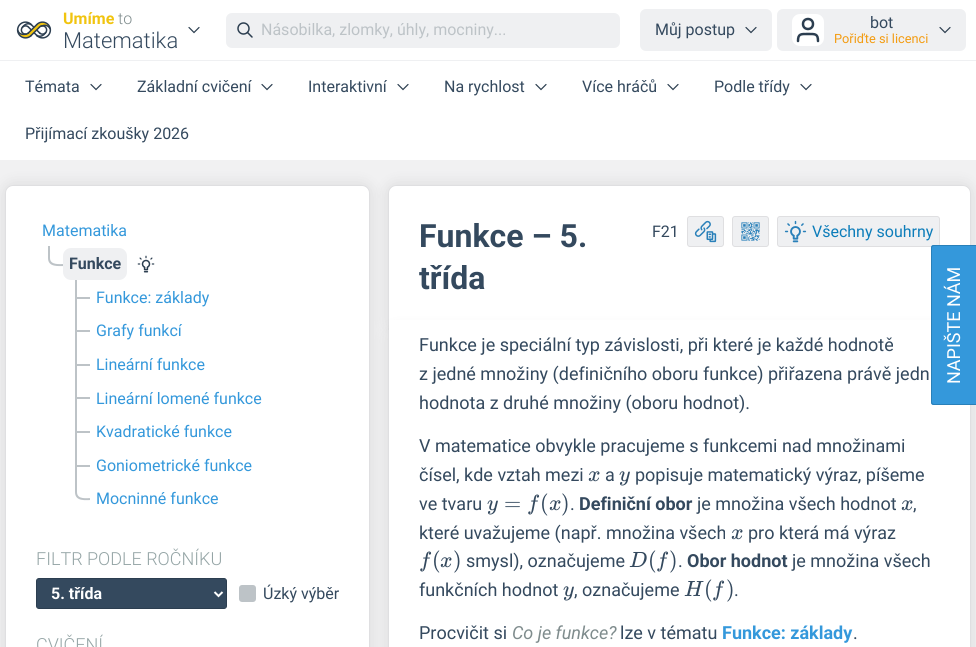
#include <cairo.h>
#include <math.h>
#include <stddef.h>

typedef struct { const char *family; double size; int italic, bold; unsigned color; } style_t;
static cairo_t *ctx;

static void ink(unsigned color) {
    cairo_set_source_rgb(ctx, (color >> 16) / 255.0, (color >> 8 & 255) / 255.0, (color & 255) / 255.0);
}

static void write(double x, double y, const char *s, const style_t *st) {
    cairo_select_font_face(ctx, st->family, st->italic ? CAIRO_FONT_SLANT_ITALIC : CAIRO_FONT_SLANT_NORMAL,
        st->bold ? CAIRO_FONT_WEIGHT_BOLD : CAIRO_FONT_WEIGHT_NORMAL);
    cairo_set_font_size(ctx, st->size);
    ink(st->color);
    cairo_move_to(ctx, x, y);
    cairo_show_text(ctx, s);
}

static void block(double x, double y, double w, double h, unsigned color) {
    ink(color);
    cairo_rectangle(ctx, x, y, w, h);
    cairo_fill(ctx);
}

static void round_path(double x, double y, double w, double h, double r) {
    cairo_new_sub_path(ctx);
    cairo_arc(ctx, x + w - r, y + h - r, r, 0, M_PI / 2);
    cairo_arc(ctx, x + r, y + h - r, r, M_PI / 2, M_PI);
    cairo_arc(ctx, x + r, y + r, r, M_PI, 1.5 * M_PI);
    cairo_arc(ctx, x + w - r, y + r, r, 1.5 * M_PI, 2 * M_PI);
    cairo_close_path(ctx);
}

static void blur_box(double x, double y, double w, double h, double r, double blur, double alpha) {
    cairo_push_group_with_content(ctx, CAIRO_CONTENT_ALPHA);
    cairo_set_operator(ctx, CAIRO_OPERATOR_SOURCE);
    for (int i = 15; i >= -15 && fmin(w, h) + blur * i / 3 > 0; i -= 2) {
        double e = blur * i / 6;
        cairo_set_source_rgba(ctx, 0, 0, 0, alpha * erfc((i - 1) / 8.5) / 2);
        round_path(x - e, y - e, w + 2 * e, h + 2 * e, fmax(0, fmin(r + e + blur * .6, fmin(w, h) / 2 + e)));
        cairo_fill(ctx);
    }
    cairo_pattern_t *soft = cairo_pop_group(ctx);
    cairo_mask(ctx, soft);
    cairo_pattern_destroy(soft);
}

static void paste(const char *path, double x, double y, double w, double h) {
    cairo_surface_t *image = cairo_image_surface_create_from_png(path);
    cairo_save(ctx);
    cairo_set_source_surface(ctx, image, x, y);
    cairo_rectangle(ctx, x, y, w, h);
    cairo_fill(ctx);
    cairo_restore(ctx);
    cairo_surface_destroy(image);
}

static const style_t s1 = {"Roboto", 16, 0, 1, 0xf1c40f};
static const style_t s2 = {"Roboto Light", 16, 0, 0, 0x7f8c8d};
static const style_t s3 = {"Roboto Light", 22, 0, 0, 0x34495e};
static const style_t s4 = {"Roboto", 16, 0, 0, 0xbdc3c7};
static const style_t s5 = {"Roboto", 16, 0, 0, 0x34495e};
static const style_t s6 = {"Roboto", 12.75, 0, 0, 0xf39c12};
static const style_t s7 = {"Roboto", 16, 0, 0, 0x3498db};
static const style_t s8 = {"Roboto", 16, 0, 1, 0x34495e};
static const style_t s9 = {"Roboto Light", 18, 0, 0, 0x95a5a6};
static const style_t s10 = {"Roboto", 16, 0, 1, 0xffffff};
static const style_t s11 = {"Roboto", 32, 0, 1, 0x34495e};
static const style_t s12 = {"Roboto", 16, 0, 0, 0x0d7dba};
static const style_t s13 = {"Roboto", 18, 0, 0, 0x34495e};
static const style_t s14 = {"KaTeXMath", 22, 1, 0, 0x34495e};
static const style_t s15 = {"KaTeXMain", 22, 0, 0, 0x34495e};
static const style_t s16 = {"Roboto", 18, 0, 1, 0x34495e};
static const style_t s17 = {"Roboto", 18, 1, 0, 0x7f8c8d};
static const style_t s18 = {"Roboto", 18, 0, 1, 0x3498db};
static const style_t s19 = {"Roboto", 18, 0, 0, 0xffffff};

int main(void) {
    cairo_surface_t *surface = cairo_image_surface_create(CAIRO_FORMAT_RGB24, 976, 647);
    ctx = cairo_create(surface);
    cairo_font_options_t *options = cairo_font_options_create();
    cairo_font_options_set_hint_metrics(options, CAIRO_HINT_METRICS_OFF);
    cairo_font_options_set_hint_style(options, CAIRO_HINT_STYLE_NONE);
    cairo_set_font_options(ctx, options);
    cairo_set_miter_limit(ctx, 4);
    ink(0xffffff);
    cairo_paint(ctx);
    paste("pic1.png", 16, 21, 36, 18);
    write(63, 24, "Umíme", &s1);
    write(118, 24, "to", &s2);
    write(63, 48, "Matematika", &s3);
    cairo_new_path(ctx);
    cairo_move_to(ctx, 189, 27.5);
    cairo_line_to(ctx, 194, 32.5);
    cairo_line_to(ctx, 199, 27.5);
    ink(0x2c3e50);
    cairo_set_line_width(ctx, 1.2);
    cairo_set_line_cap(ctx, CAIRO_LINE_CAP_ROUND);
    cairo_stroke(ctx);
    ink(0xeff0f2);
    round_path(226, 13, 394, 35, 6);
    cairo_fill(ctx);
    cairo_arc(ctx, 243.5, 28.5, 5.5, 0, 2 * M_PI);
    ink(0x2c3e50);
    cairo_set_line_width(ctx, 1.5);
    cairo_set_line_cap(ctx, CAIRO_LINE_CAP_BUTT);
    cairo_stroke(ctx);
    write(261, 35, "Násobilka, zlomky, úhly, mocniny...", &s4);
    cairo_new_path(ctx);
    cairo_move_to(ctx, 252, 37);
    cairo_line_to(ctx, 247.5, 32.5);
    ink(0x2c3e50);
    cairo_set_line_cap(ctx, CAIRO_LINE_CAP_ROUND);
    cairo_set_line_join(ctx, CAIRO_LINE_JOIN_ROUND);
    cairo_stroke(ctx);
    ink(0xeff0f2);
    round_path(640, 9, 132, 42, 6);
    cairo_fill(ctx);
    write(655, 35, "Můj postup", &s5);
    cairo_new_path(ctx);
    cairo_move_to(ctx, 746, 27.5);
    cairo_line_to(ctx, 751, 32.5);
    cairo_line_to(ctx, 756, 27.5);
    ink(0x2c3e50);
    cairo_set_line_width(ctx, 1.2);
    cairo_set_line_join(ctx, CAIRO_LINE_JOIN_MITER);
    cairo_stroke(ctx);
    ink(0xeff0f2);
    round_path(777, 9, 189, 42, 6);
    cairo_fill(ctx);
    ink(0xffffff);
    round_path(792, 14, 32, 32, 8);
    cairo_fill(ctx);
    cairo_new_path(ctx);
    cairo_move_to(ctx, 818, 41);
    cairo_curve_to(ctx, 818, 33.5, 815, 34, 808, 34);
    cairo_curve_to(ctx, 801, 34, 798, 33.5, 798, 41);
    ink(0x2c3e50);
    cairo_set_line_width(ctx, 2.5);
    cairo_set_line_join(ctx, CAIRO_LINE_JOIN_ROUND);
    cairo_stroke(ctx);
    cairo_arc(ctx, 808, 24, 5, 0, 2 * M_PI);
    cairo_set_line_cap(ctx, CAIRO_LINE_CAP_BUTT);
    cairo_set_line_join(ctx, CAIRO_LINE_JOIN_MITER);
    cairo_stroke(ctx);
    write(870, 28, "bot", &s5);
    write(834, 43, "Pořiďte si licenci", &s6);
    cairo_new_path(ctx);
    cairo_move_to(ctx, 940, 27.5);
    cairo_line_to(ctx, 945, 32.5);
    cairo_line_to(ctx, 950, 27.5);
    ink(0x2c3e50);
    cairo_set_line_width(ctx, 1.2);
    cairo_set_line_cap(ctx, CAIRO_LINE_CAP_ROUND);
    cairo_stroke(ctx);
    block(0, 60, 976, 1, 0xeff0f2);
    write(25, 92, "Témata", &s5);
    cairo_new_path(ctx);
    cairo_move_to(ctx, 91, 84.5);
    cairo_line_to(ctx, 96, 89.5);
    cairo_line_to(ctx, 101, 84.5);
    ink(0x2c3e50);
    cairo_stroke(ctx);
    write(137, 92, "Základní cvičení", &s5);
    cairo_new_path(ctx);
    cairo_move_to(ctx, 262, 84.5);
    cairo_line_to(ctx, 267, 89.5);
    cairo_line_to(ctx, 272, 84.5);
    ink(0x2c3e50);
    cairo_stroke(ctx);
    write(308, 92, "Interaktivní", &s5);
    cairo_new_path(ctx);
    cairo_move_to(ctx, 398, 84.5);
    cairo_line_to(ctx, 403, 89.5);
    cairo_line_to(ctx, 408, 84.5);
    ink(0x2c3e50);
    cairo_stroke(ctx);
    write(444, 92, "Na rychlost", &s5);
    cairo_new_path(ctx);
    cairo_move_to(ctx, 536, 84.5);
    cairo_line_to(ctx, 541, 89.5);
    cairo_line_to(ctx, 546, 84.5);
    ink(0x2c3e50);
    cairo_stroke(ctx);
    write(582, 92, "Více hráčů", &s5);
    cairo_new_path(ctx);
    cairo_move_to(ctx, 668, 84.5);
    cairo_line_to(ctx, 673, 89.5);
    cairo_line_to(ctx, 678, 84.5);
    ink(0x2c3e50);
    cairo_stroke(ctx);
    write(714, 92, "Podle třídy", &s5);
    cairo_new_path(ctx);
    cairo_move_to(ctx, 801, 84.5);
    cairo_line_to(ctx, 806, 89.5);
    cairo_line_to(ctx, 811, 84.5);
    ink(0x2c3e50);
    cairo_stroke(ctx);
    write(25, 139, "Přijímací zkoušky 2026", &s5);
    block(0, 160, 976, 487, 0xf1f1f2);
    ink(0x000000);
    blur_box(5, 185, 365, 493, 8, 7.5, 0.1);
    ink(0xffffff);
    round_path(5.5, 185.5, 364, 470, 7.5);
    cairo_fill_preserve(ctx);
    ink(0xdfdfe1);
    cairo_set_line_width(ctx, 1);
    cairo_set_line_cap(ctx, CAIRO_LINE_CAP_BUTT);
    cairo_stroke(ctx);
    ink(0xbdc3c7);
    cairo_set_fill_rule(ctx, CAIRO_FILL_RULE_EVEN_ODD);
    cairo_new_path(ctx);
    cairo_move_to(ctx, 48, 234);
    cairo_line_to(ctx, 65, 234);
    cairo_line_to(ctx, 65, 266);
    cairo_curve_to(ctx, 58.5, 266, 48, 267.5, 48, 258);
    cairo_close_path(ctx);
    cairo_move_to(ctx, 50, 234);
    cairo_line_to(ctx, 65, 234);
    cairo_line_to(ctx, 65, 264);
    cairo_curve_to(ctx, 60, 264, 50, 265.5, 50, 258);
    cairo_close_path(ctx);
    cairo_fill(ctx);
    ink(0xffffff);
    round_path(36, 216, 97, 30, 8);
    cairo_fill(ctx);
    write(42, 236, "Matematika", &s7);
    ink(0xbdc3c7);
    cairo_new_path(ctx);
    cairo_move_to(ctx, 75, 265);
    cairo_line_to(ctx, 92, 265);
    cairo_line_to(ctx, 92, 500);
    cairo_curve_to(ctx, 86, 500, 75, 502, 75, 492);
    cairo_close_path(ctx);
    cairo_move_to(ctx, 77, 265);
    cairo_line_to(ctx, 92, 265);
    cairo_line_to(ctx, 92, 498);
    cairo_curve_to(ctx, 87, 498, 77, 500, 77, 492);
    cairo_close_path(ctx);
    cairo_fill(ctx);
    ink(0xeff0f2);
    round_path(63, 248, 64, 32, 8);
    cairo_fill(ctx);
    write(69, 269, "Funkce", &s8);
    paste("pic2.png", 137, 255, 18, 18);
    block(75, 297, 15, 2, 0xbdc3c7);
    write(96, 303, "Funkce: základy", &s7);
    block(75, 330, 15, 2, 0xbdc3c7);
    write(96, 336, "Grafy funkcí", &s7);
    block(75, 364, 15, 2, 0xbdc3c7);
    write(96, 370, "Lineární funkce", &s7);
    block(75, 397, 15, 2, 0xbdc3c7);
    write(96, 404, "Lineární lomené funkce", &s7);
    block(75, 431, 15, 2, 0xbdc3c7);
    write(96, 437, "Kvadratické funkce", &s7);
    block(75, 465, 15, 2, 0xbdc3c7);
    write(96, 471, "Goniometrické funkce", &s7);
    ink(0xffffff);
    round_path(90, 483, 135, 32, 8);
    cairo_fill(ctx);
    write(96, 504, "Mocninné funkce", &s7);
    write(36, 565, "FILTR PODLE ROČNÍKU", &s9);
    ink(0x34495e);
    round_path(36.5, 578.5, 190, 30, 2.5);
    cairo_fill_preserve(ctx);
    ink(0x2c3e50);
    cairo_stroke(ctx);
    cairo_new_path(ctx);
    cairo_move_to(ctx, 214.5, 592);
    cairo_line_to(ctx, 218.5, 596);
    cairo_line_to(ctx, 222.5, 592);
    ink(0xffffff);
    cairo_set_line_width(ctx, 2);
    cairo_stroke(ctx);
    write(51, 599, "5. třída", &s10);
    ink(0xbdc3c7);
    round_path(239, 585, 17, 17, 3);
    cairo_fill(ctx);
    write(263, 599, "Úzký výběr", &s5);
    write(36, 651, "CVIČENÍ", &s9);
    ink(0x000000);
    blur_box(388, 185, 583, 145, 8, 7.5, 0.1);
    ink(0xffffff);
    cairo_new_path(ctx);
    cairo_move_to(ctx, 396, 185.5);
    cairo_line_to(ctx, 963, 185.5);
    cairo_curve_to(ctx, 967, 185.5, 970.5, 189, 970.5, 193);
    cairo_line_to(ctx, 970.5, 329.5);
    cairo_line_to(ctx, 388.5, 329.5);
    cairo_line_to(ctx, 388.5, 193);
    cairo_curve_to(ctx, 388.5, 189, 392, 185.5, 396, 185.5);
    cairo_close_path(ctx);
    cairo_fill_preserve(ctx);
    ink(0xdfdfe1);
    cairo_set_line_width(ctx, 1);
    cairo_stroke(ctx);
    write(419, 247, "Funkce – 5.", &s11);
    write(419, 289, "třída", &s11);
    write(652, 237, "F21", &s5);
    ink(0xeff0f2);
    round_path(687.5, 216.5, 36, 30, 2.5);
    cairo_fill_preserve(ctx);
    ink(0xdfdfe1);
    cairo_stroke(ctx);
    paste("pic3.png", 694, 220, 23, 23);
    ink(0xeff0f2);
    round_path(732.5, 216.5, 36, 30, 2.5);
    cairo_fill_preserve(ctx);
    ink(0xdfdfe1);
    cairo_stroke(ctx);
    paste("pic4.png", 741, 222, 19, 19);
    ink(0xeff0f2);
    round_path(777.5, 216.5, 162, 30, 2.5);
    cairo_fill_preserve(ctx);
    ink(0xdfdfe1);
    cairo_stroke(ctx);
    paste("pic5.png", 784, 220, 23, 23);
    write(812, 237, "Všechny souhrny", &s12);
    ink(0x000000);
    blur_box(388, 330, 583, 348, 8, 7.5, 0.1);
    ink(0xffffff);
    cairo_rectangle(ctx, 388.5, 330.5, 582, 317);
    cairo_fill_preserve(ctx);
    ink(0xdfdfe1);
    cairo_stroke(ctx);
    block(389, 320, 542, 11, 0xffffff);
    write(419, 351, "Funkce je speciální typ závislosti, při které je každé hodnotě", &s13);
    write(419, 380, "z jedné množiny (definičního oboru funkce) přiřazena právě jedn", &s13);
    write(419, 409, "hodnota z druhé množiny (oboru hodnot).", &s13);
    write(419, 452, "V matematice obvykle pracujeme s funkcemi nad množinami", &s13);
    write(419, 481, "čísel, kde vztah mezi", &s13);
    write(588, 481, "x", &s14);
    write(605, 481, "a", &s13);
    write(619, 481, "y", &s14);
    write(635, 481, "popisuje matematický výraz, píšeme", &s13);
    write(419, 510, "ve tvaru", &s13);
    write(487, 510, "y", &s14);
    write(504, 510, "=", &s15);
    write(527, 510, "f", &s14);
    write(540, 510, "(", &s15);
    write(549, 510, "x", &s14);
    write(561, 510, ")", &s15);
    write(570, 510, ".", &s13);
    write(579, 510, "Definiční obor", &s16);
    write(697, 510, "je množina všech hodnot", &s13);
    write(901, 510, "x", &s14);
    write(913, 510, ",", &s13);
    write(419, 539, "které uvažujeme (např. množina všech", &s13);
    write(731, 539, "x", &s14);
    write(748, 539, "pro která má výraz", &s13);
    write(419, 567, "f", &s14);
    write(432, 567, "(", &s15);
    write(440, 567, "x", &s14);
    write(453, 567, ")", &s15);
    write(466, 567, "smysl), označujeme", &s13);
    write(629, 567, "D", &s14);
    write(648, 567, "(", &s15);
    write(656, 567, "f", &s14);
    write(669, 567, ")", &s15);
    write(678, 567, ".", &s13);
    write(687, 567, "Obor hodnot", &s16);
    write(792, 567, "je množina všech", &s13);
    write(419, 596, "funkčních hodnot", &s13);
    write(563, 596, "y", &s14);
    write(574, 596, ", označujeme", &s13);
    write(684, 596, "H", &s14);
    write(704, 596, "(", &s15);
    write(712, 596, "f", &s14);
    write(726, 596, ")", &s15);
    write(734, 596, ".", &s13);
    write(419, 639, "Procvičit si", &s13);
    write(512, 639, "Co je funkce?", &s17);
    write(620, 639, "lze v tématu", &s13);
    write(722, 639, "Funkce: základy", &s18);
    write(853, 639, ".", &s13);
    ink(0x3498db);
    cairo_set_fill_rule(ctx, CAIRO_FILL_RULE_WINDING);
    cairo_new_path(ctx);
    cairo_move_to(ctx, 931, 402);
    cairo_line_to(ctx, 931, 248);
    cairo_curve_to(ctx, 931, 246, 932, 245, 934, 245);
    cairo_line_to(ctx, 976, 245);
    cairo_line_to(ctx, 976, 405);
    cairo_line_to(ctx, 934, 405);
    cairo_curve_to(ctx, 932, 405, 931, 404, 931, 402);
    cairo_close_path(ctx);
    cairo_fill(ctx);
    ink(0x2980b9);
    cairo_set_fill_rule(ctx, CAIRO_FILL_RULE_EVEN_ODD);
    cairo_new_path(ctx);
    cairo_move_to(ctx, 931, 402);
    cairo_line_to(ctx, 931, 248);
    cairo_curve_to(ctx, 931, 246, 932, 245, 934, 245);
    cairo_line_to(ctx, 976, 245);
    cairo_line_to(ctx, 976, 405);
    cairo_line_to(ctx, 934, 405);
    cairo_curve_to(ctx, 932, 405, 931, 404, 931, 402);
    cairo_close_path(ctx);
    cairo_move_to(ctx, 932, 402);
    cairo_line_to(ctx, 932, 248);
    cairo_curve_to(ctx, 932, 247, 933, 246, 934, 246);
    cairo_line_to(ctx, 976, 246);
    cairo_line_to(ctx, 976, 404);
    cairo_line_to(ctx, 934, 404);
    cairo_curve_to(ctx, 933, 404, 932, 403, 932, 402);
    cairo_close_path(ctx);
    cairo_fill(ctx);
    cairo_save(ctx);
    cairo_translate(ctx, 960, 384);
    cairo_rotate(ctx, -90 * M_PI / 180);
    write(0, 0, "NAPIŠTE NÁM", &s19);
    cairo_restore(ctx);
    cairo_surface_write_to_png(surface, "screenshot.png");
    cairo_font_options_destroy(options);
    cairo_destroy(ctx);
    cairo_surface_destroy(surface);
    return 0;
}
